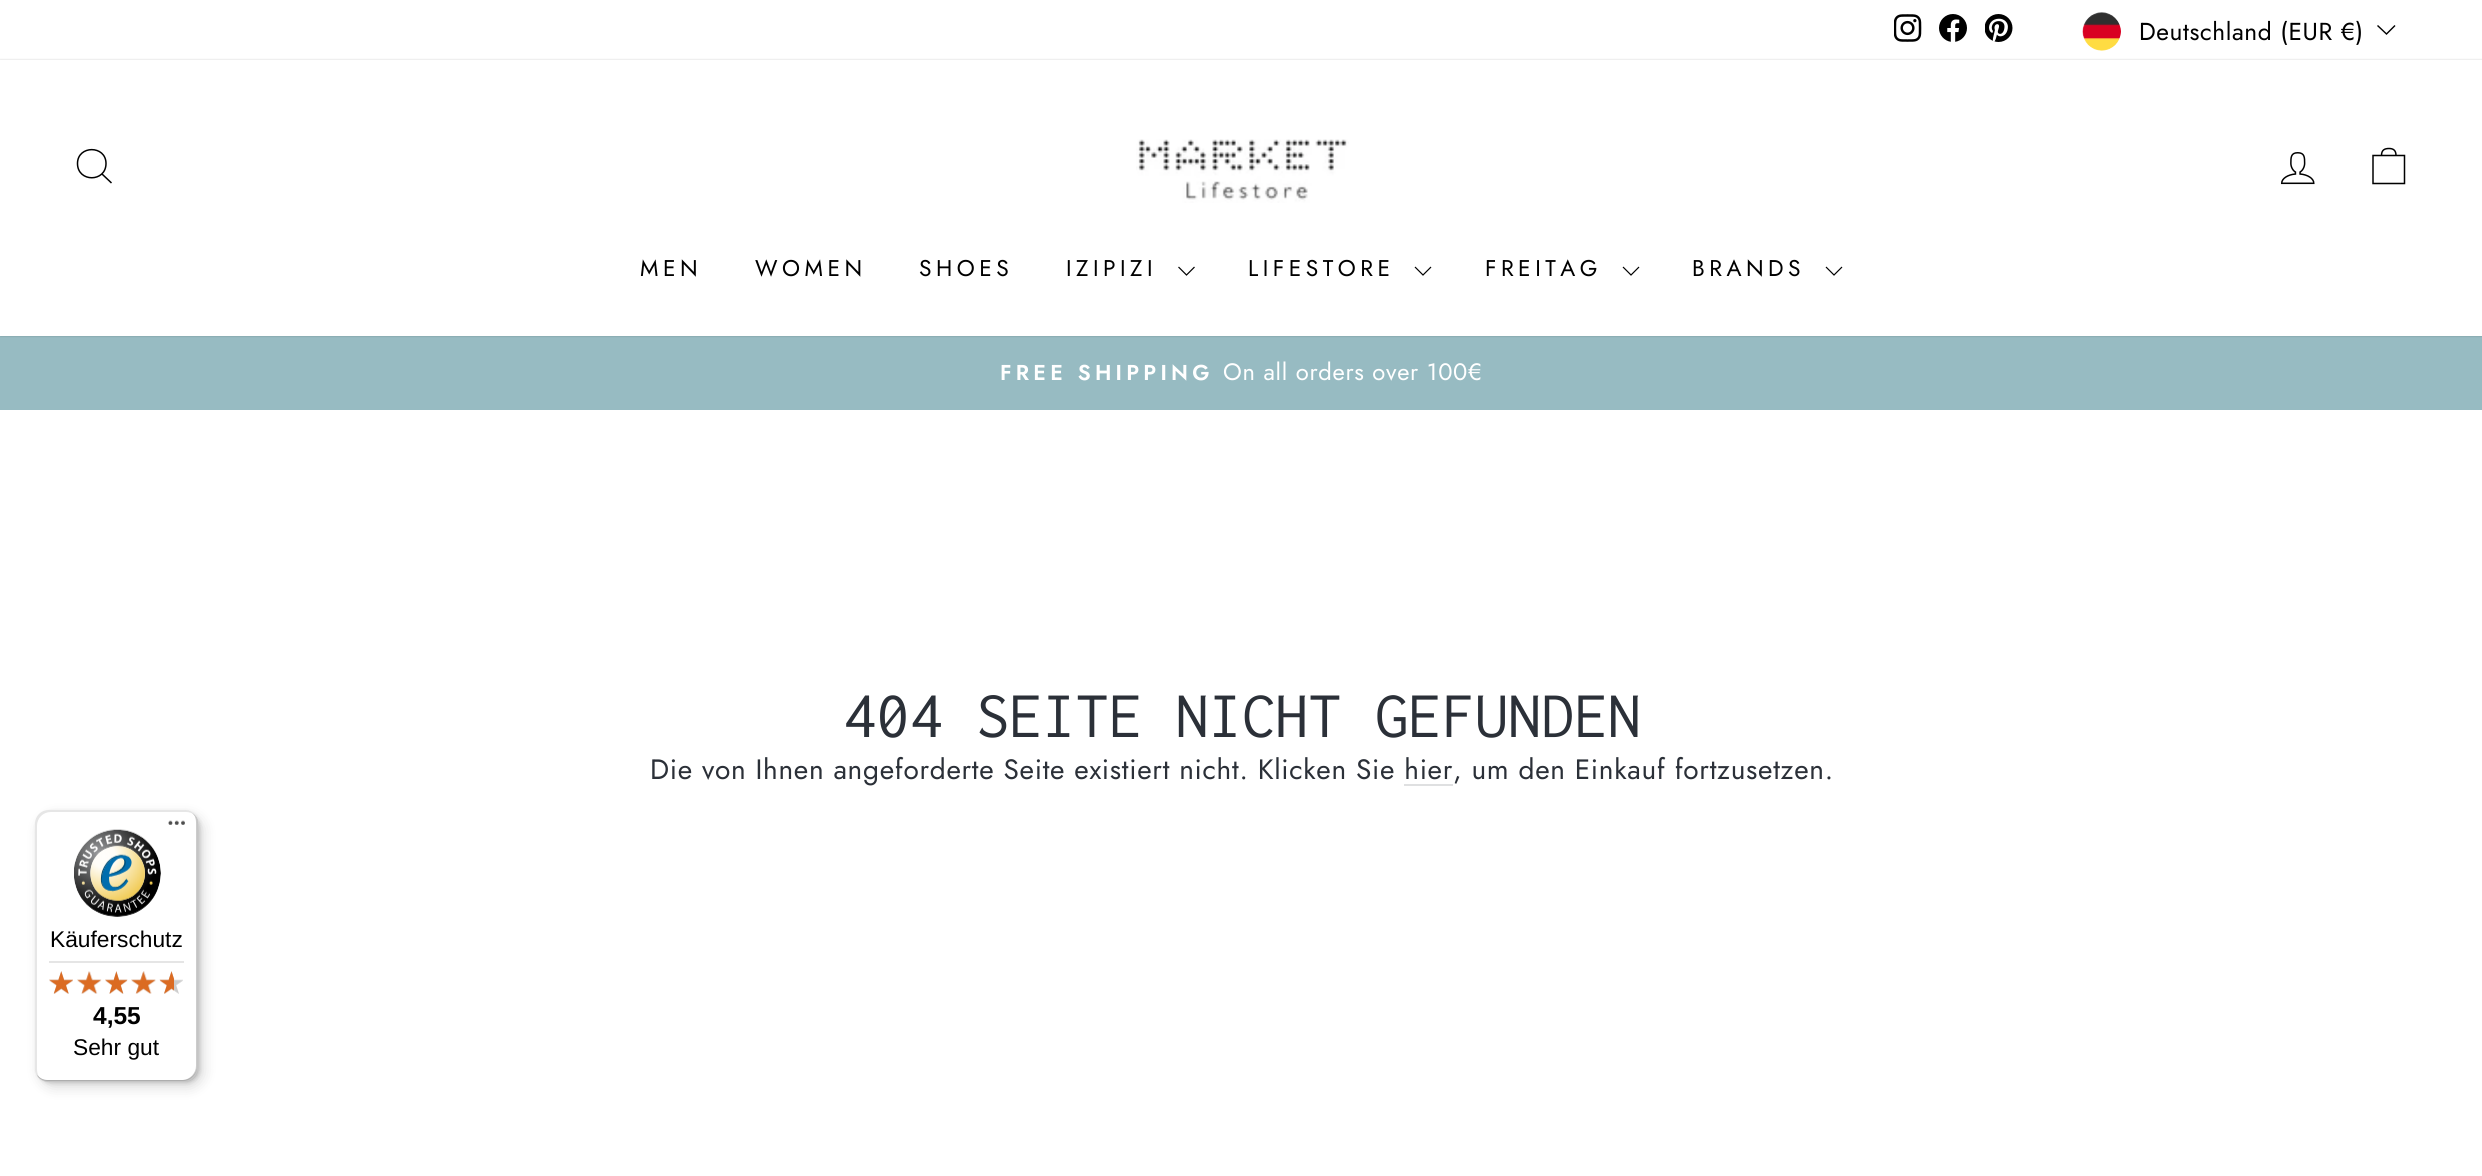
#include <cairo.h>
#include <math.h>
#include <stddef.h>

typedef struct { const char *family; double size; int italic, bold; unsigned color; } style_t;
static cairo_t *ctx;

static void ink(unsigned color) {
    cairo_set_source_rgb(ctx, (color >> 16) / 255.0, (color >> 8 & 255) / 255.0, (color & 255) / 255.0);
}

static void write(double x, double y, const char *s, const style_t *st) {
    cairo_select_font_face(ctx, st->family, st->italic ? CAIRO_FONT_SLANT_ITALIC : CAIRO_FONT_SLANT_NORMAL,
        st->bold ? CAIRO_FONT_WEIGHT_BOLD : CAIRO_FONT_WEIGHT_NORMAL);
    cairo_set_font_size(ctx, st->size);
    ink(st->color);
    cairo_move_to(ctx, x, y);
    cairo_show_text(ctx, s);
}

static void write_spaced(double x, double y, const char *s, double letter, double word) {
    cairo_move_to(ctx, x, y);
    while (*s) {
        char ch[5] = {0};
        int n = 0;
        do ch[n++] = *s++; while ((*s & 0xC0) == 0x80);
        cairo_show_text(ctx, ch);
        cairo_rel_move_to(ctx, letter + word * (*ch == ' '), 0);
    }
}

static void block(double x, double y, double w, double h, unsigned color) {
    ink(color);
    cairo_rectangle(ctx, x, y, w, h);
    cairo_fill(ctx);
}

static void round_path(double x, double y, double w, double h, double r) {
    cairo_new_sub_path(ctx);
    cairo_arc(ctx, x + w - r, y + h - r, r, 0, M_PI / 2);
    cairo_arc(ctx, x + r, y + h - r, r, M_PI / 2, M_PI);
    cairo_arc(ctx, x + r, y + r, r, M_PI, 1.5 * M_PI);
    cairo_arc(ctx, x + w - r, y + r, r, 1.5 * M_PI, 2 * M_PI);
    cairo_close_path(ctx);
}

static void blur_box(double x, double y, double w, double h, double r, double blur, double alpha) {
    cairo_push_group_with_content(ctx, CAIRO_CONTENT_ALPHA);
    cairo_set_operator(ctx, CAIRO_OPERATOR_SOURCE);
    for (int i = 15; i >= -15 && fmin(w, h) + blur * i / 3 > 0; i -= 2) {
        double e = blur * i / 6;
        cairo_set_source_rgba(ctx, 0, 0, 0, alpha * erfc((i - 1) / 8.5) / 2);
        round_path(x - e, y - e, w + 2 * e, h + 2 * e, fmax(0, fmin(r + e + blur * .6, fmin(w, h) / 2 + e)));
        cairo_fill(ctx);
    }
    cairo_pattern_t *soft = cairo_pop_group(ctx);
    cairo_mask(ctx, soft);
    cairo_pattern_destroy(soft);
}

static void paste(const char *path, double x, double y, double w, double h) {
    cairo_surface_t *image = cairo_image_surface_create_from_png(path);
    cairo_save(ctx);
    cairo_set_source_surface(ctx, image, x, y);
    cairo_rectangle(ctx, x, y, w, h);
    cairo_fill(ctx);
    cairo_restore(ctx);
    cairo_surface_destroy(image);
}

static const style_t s1 = {"Inconsolata", 66.5, 0, 0, 0x2b3038};
static const style_t s2 = {"Liberation Sans", 22.75, 0, 0, 0x000000};
static const style_t s3 = {"Liberation Sans", 24.5, 0, 1, 0x000000};

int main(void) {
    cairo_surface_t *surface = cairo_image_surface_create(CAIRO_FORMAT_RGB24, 2482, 1176);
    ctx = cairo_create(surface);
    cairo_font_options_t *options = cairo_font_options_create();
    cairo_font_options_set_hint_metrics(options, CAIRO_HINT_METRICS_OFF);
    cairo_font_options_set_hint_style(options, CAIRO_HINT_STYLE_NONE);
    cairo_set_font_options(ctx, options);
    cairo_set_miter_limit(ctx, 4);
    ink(0xffffff);
    cairo_paint(ctx);
    paste("pic1.png", 1894, 14, 28, 28);
    paste("pic2.png", 1939, 14, 28, 28);
    paste("pic3.png", 1985, 14, 28, 28);
    paste("pic4.png", 2082, 12, 39, 39);
    cairo_select_font_face(ctx, "Jost", CAIRO_FONT_SLANT_NORMAL, CAIRO_FONT_WEIGHT_NORMAL);
    cairo_set_font_size(ctx, 24.5);
    ink(0x000000);
    write_spaced(2139, 40, "Deutschland (EUR €)", 0.6, 0);
    cairo_new_path(ctx);
    cairo_move_to(ctx, 2377.5, 25.5);
    cairo_line_to(ctx, 2386.5, 34);
    cairo_line_to(ctx, 2395, 25.5);
    cairo_set_line_width(ctx, 1.4);
    cairo_stroke(ctx);
    block(0, 336, 2482, 74, 0x97bbc2);
    cairo_save(ctx);
    cairo_set_fill_rule(ctx, CAIRO_FILL_RULE_EVEN_ODD);
    cairo_new_path(ctx);
    cairo_move_to(ctx, 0, 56);
    cairo_line_to(ctx, 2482, 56);
    cairo_line_to(ctx, 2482, 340);
    cairo_line_to(ctx, 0, 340);
    cairo_close_path(ctx);
    cairo_move_to(ctx, 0, 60);
    cairo_line_to(ctx, 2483, 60);
    cairo_line_to(ctx, 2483, 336);
    cairo_line_to(ctx, 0, 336);
    cairo_close_path(ctx);
    cairo_clip(ctx);
    ink(0x000000);
    blur_box(0, 60, 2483, 276, 0, 1, 0.2);
    cairo_restore(ctx);
    cairo_new_path(ctx);
    cairo_move_to(ctx, 106, 163.5);
    cairo_curve_to(ctx, 106, 182.5, 77.5, 182.5, 77.5, 163.5);
    cairo_curve_to(ctx, 77.5, 145, 106, 145, 106, 163.5);
    cairo_close_path(ctx);
    cairo_move_to(ctx, 111.5, 183);
    cairo_line_to(ctx, 102, 174);
    ink(0x000000);
    cairo_set_line_width(ctx, 1.5);
    cairo_stroke(ctx);
    paste("pic5.png", 1136, 139, 213, 64);
    paste("pic6.png", 2280, 152, 35, 33);
    cairo_new_path(ctx);
    cairo_move_to(ctx, 2373, 155.5);
    cairo_line_to(ctx, 2404.5, 155.5);
    cairo_line_to(ctx, 2404.5, 183.5);
    cairo_line_to(ctx, 2373, 183.5);
    cairo_close_path(ctx);
    cairo_move_to(ctx, 2381.5, 155.5);
    cairo_curve_to(ctx, 2381.5, 150, 2384.5, 148.5, 2389, 148.5);
    cairo_curve_to(ctx, 2393, 148.5, 2396, 150, 2396, 155.5);
    cairo_stroke(ctx);
    cairo_set_font_size(ctx, 22.75);
    write_spaced(640, 276, "MEN", 4.5, 0);
    write_spaced(755, 276, "WOMEN", 4.5, 0);
    write_spaced(919, 276, "SHOES", 4.5, 0);
    write_spaced(1066, 276, "IZIPIZI", 4.5, 0);
    cairo_new_path(ctx);
    cairo_move_to(ctx, 1178.5, 267);
    cairo_line_to(ctx, 1186.5, 275);
    cairo_line_to(ctx, 1194.5, 267);
    cairo_set_line_width(ctx, 1.2);
    cairo_stroke(ctx);
    write_spaced(1248, 276, "LIFESTORE", 4.5, 0);
    cairo_new_path(ctx);
    cairo_move_to(ctx, 1415, 267);
    cairo_line_to(ctx, 1423, 275);
    cairo_line_to(ctx, 1431, 267);
    cairo_stroke(ctx);
    write_spaced(1485, 276, "FREITAG", 4.5, 0);
    cairo_new_path(ctx);
    cairo_move_to(ctx, 1623, 267);
    cairo_line_to(ctx, 1631, 275);
    cairo_line_to(ctx, 1639, 267);
    cairo_stroke(ctx);
    write_spaced(1692, 276, "BRANDS", 4.5, 0);
    cairo_new_path(ctx);
    cairo_move_to(ctx, 1826, 267);
    cairo_line_to(ctx, 1834, 275);
    cairo_line_to(ctx, 1842, 267);
    cairo_stroke(ctx);
    cairo_select_font_face(ctx, "Jost SemiBold", CAIRO_FONT_SLANT_NORMAL, CAIRO_FONT_WEIGHT_NORMAL);
    cairo_set_font_size(ctx, 21.5);
    ink(0xffffff);
    write_spaced(1000, 380, "FREE SHIPPING", 4.25, 0);
    cairo_select_font_face(ctx, "Jost", CAIRO_FONT_SLANT_NORMAL, CAIRO_FONT_WEIGHT_NORMAL);
    cairo_set_font_size(ctx, 23.75);
    write_spaced(1223, 380, "On all orders over 100€", 0.7, 0);
    write(843, 737, "404 SEITE NICHT GEFUNDEN", &s1);
    cairo_select_font_face(ctx, "Jost", CAIRO_FONT_SLANT_NORMAL, CAIRO_FONT_WEIGHT_NORMAL);
    cairo_set_font_size(ctx, 28);
    write_spaced(650, 779, "Die von Ihnen angeforderte Seite existiert nicht. Klicken Sie hier, um den Einkauf fortzusetzen.", 0.7, 0);
    block(1404, 784, 49, 2, 0xdfe0e1);
    ink(0x000000);
    blur_box(40, 816, 163, 271, 14, 7, 0.15);
    blur_box(37, 812, 163, 271, 14, 2, 0.15);
    ink(0xffffff);
    round_path(35, 810, 163, 272, 14);
    cairo_fill(ctx);
    cairo_set_source_rgba(ctx, 0, 0, 0, 0.1);
    cairo_new_path(ctx);
    cairo_move_to(ctx, 51, 812);
    cairo_line_to(ctx, 186, 812);
    cairo_curve_to(ctx, 189, 812, 193, 813, 195, 816);
    cairo_curve_to(ctx, 193, 812, 189, 810, 184, 810);
    cairo_line_to(ctx, 49, 810);
    cairo_curve_to(ctx, 41, 810, 35, 816, 35, 824);
    cairo_line_to(ctx, 35, 1068);
    cairo_curve_to(ctx, 35, 1074, 38, 1078, 43, 1081);
    cairo_curve_to(ctx, 39, 1078, 37, 1074, 37, 1069);
    cairo_line_to(ctx, 37, 826);
    cairo_curve_to(ctx, 37, 818, 43, 812, 51, 812);
    cairo_close_path(ctx);
    cairo_fill(ctx);
    cairo_set_source_rgba(ctx, 0, 0, 0, 0.2);
    cairo_new_path(ctx);
    cairo_move_to(ctx, 37, 1075);
    cairo_curve_to(ctx, 39, 1079, 44, 1082, 49, 1082);
    cairo_line_to(ctx, 184, 1082);
    cairo_curve_to(ctx, 192, 1082, 198, 1076, 198, 1068);
    cairo_line_to(ctx, 198, 824);
    cairo_curve_to(ctx, 198, 819, 196, 815, 192, 813);
    cairo_curve_to(ctx, 195, 815, 196, 819, 196, 822);
    cairo_line_to(ctx, 196, 1066);
    cairo_curve_to(ctx, 196, 1073, 190, 1080, 182, 1080);
    cairo_line_to(ctx, 47, 1080);
    cairo_curve_to(ctx, 43, 1080, 40, 1078, 37, 1075);
    cairo_close_path(ctx);
    cairo_fill(ctx);
    cairo_set_source_rgba(ctx, 0.196, 0.196, 0.196, 0.2);
    cairo_new_path(ctx);
    cairo_move_to(ctx, 36, 1074);
    cairo_curve_to(ctx, 39, 1079, 43, 1082, 49, 1082);
    cairo_line_to(ctx, 184, 1082);
    cairo_curve_to(ctx, 192, 1082, 198, 1076, 198, 1068);
    cairo_line_to(ctx, 198, 824);
    cairo_curve_to(ctx, 198, 819, 196, 815, 192, 813);
    cairo_curve_to(ctx, 195, 815, 197, 819, 197, 823);
    cairo_line_to(ctx, 197, 1066);
    cairo_curve_to(ctx, 197, 1074, 190, 1080, 183, 1080);
    cairo_line_to(ctx, 48, 1080);
    cairo_curve_to(ctx, 43, 1080, 39, 1078, 36, 1074);
    cairo_close_path(ctx);
    cairo_fill(ctx);
    cairo_set_source_rgba(ctx, 1, 1, 1, 0.3);
    cairo_new_path(ctx);
    cairo_move_to(ctx, 38, 1076);
    cairo_curve_to(ctx, 40, 1080, 44, 1082, 49, 1082);
    cairo_line_to(ctx, 184, 1082);
    cairo_curve_to(ctx, 192, 1082, 198, 1076, 198, 1068);
    cairo_line_to(ctx, 198, 824);
    cairo_curve_to(ctx, 198, 819, 196, 815, 193, 813);
    cairo_curve_to(ctx, 195, 816, 197, 819, 197, 823);
    cairo_line_to(ctx, 197, 1067);
    cairo_curve_to(ctx, 197, 1074, 191, 1081, 183, 1081);
    cairo_line_to(ctx, 48, 1081);
    cairo_curve_to(ctx, 44, 1081, 40, 1079, 38, 1076);
    cairo_close_path(ctx);
    cairo_fill(ctx);
    paste("pic7.png", 168, 820, 17, 5);
    paste("pic8.png", 74, 829, 87, 88);
    write(50, 947, "Käuferschutz", &s2);
    block(49, 961, 135, 2, 0xe5e5e5);
    paste("pic9.png", 49, 971, 24, 23);
    paste("pic10.png", 77, 971, 24, 23);
    paste("pic11.png", 105, 971, 23, 23);
    paste("pic12.png", 131, 971, 25, 23);
    paste("pic13.png", 160, 971, 23, 23);
    paste("pic14.png", 49, 971, 24, 23);
    paste("pic15.png", 77, 971, 25, 23);
    paste("pic16.png", 105, 971, 23, 23);
    paste("pic17.png", 131, 971, 25, 23);
    paste("pic18.png", 159, 971, 15, 23);
    write(93, 1024, "4,55", &s3);
    write(73, 1055, "Sehr gut", &s2);
    cairo_surface_write_to_png(surface, "screenshot.png");
    cairo_font_options_destroy(options);
    cairo_destroy(ctx);
    cairo_surface_destroy(surface);
    return 0;
}
